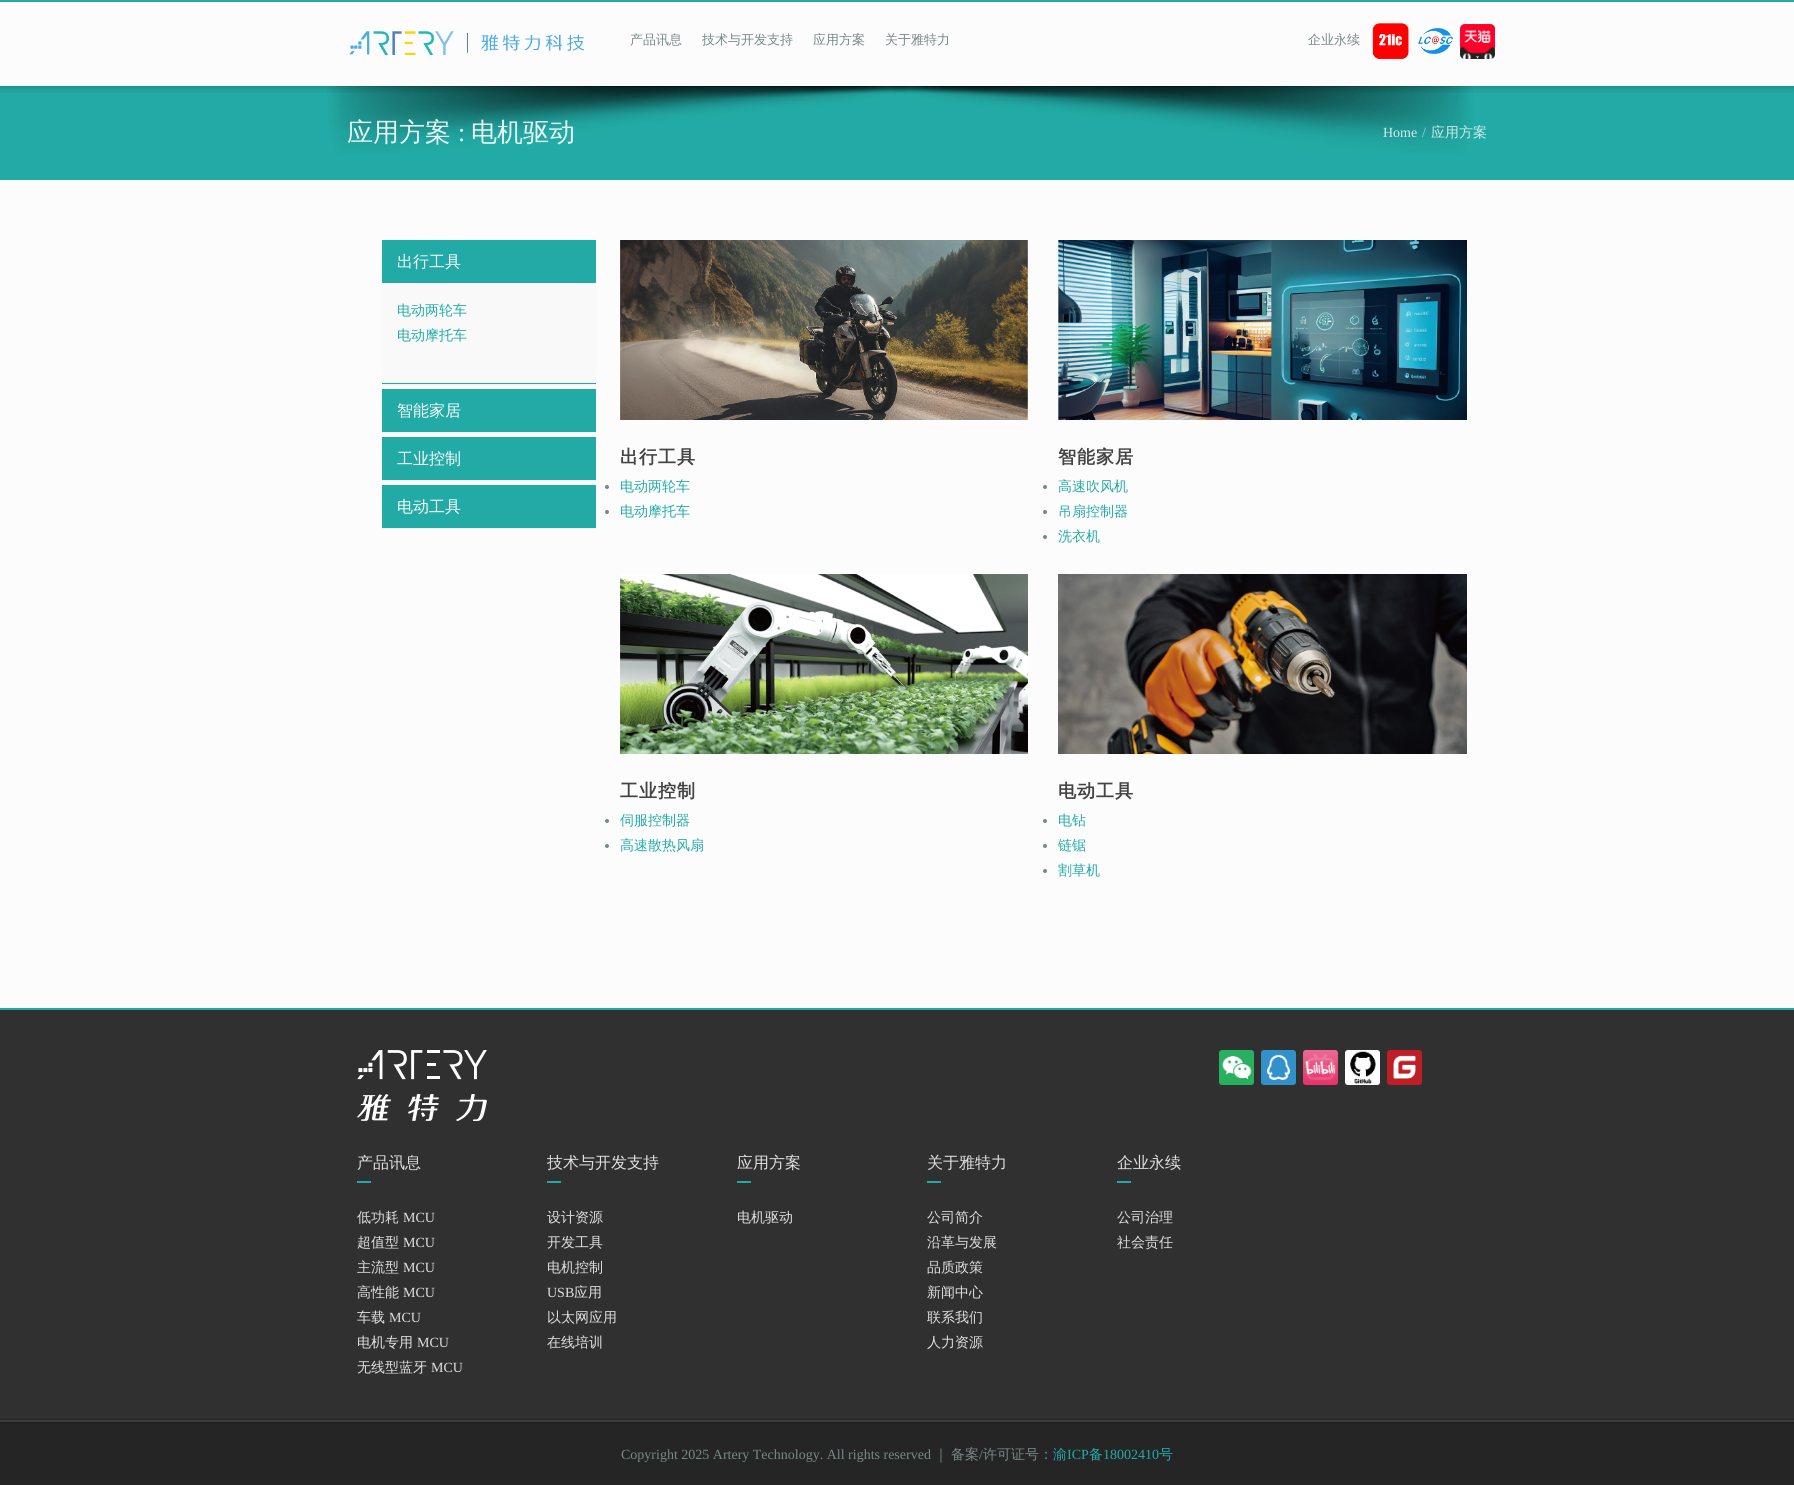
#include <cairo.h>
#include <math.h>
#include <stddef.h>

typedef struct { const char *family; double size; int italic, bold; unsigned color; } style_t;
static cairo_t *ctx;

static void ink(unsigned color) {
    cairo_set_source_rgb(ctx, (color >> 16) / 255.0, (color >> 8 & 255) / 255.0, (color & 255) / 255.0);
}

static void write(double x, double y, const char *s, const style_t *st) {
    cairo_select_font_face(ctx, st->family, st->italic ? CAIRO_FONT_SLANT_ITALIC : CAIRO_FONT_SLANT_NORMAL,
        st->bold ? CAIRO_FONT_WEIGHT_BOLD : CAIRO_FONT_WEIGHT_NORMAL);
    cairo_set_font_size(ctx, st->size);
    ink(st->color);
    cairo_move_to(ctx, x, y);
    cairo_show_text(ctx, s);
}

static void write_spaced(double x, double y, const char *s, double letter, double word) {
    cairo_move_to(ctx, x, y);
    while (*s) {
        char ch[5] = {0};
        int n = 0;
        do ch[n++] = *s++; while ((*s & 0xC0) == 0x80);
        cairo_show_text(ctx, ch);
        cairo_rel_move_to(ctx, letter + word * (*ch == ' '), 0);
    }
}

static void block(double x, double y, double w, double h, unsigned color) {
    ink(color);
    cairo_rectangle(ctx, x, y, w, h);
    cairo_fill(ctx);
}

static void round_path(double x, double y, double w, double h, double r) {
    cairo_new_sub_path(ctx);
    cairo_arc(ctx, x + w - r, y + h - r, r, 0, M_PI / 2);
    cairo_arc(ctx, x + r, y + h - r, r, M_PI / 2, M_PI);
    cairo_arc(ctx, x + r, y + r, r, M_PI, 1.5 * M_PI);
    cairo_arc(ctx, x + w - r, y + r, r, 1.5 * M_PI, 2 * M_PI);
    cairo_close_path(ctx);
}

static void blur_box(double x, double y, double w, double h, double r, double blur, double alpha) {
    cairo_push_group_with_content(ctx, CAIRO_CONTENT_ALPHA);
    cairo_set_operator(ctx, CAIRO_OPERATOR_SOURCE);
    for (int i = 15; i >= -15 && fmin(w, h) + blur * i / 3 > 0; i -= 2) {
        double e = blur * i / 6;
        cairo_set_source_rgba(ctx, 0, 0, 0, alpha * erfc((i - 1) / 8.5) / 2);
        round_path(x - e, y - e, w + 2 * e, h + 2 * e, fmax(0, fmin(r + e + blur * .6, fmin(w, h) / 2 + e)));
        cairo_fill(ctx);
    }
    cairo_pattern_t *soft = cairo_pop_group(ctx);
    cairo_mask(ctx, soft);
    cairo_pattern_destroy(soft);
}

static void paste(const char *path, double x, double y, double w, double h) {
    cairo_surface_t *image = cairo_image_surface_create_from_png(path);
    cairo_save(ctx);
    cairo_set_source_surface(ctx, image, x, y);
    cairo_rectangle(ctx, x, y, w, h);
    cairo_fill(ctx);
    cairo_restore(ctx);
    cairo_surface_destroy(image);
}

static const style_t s1 = {"WenQuanYi Zen Hei Medium", 13, 0, 0, 0x778888};
static const style_t s2 = {"WenQuanYi Zen Hei Medium", 26, 0, 0, 0xe8f4f4};
static const style_t s3 = {"Liberation Serif", 26, 0, 0, 0xe8f4f4};
static const style_t s4 = {"Liberation Serif", 14, 0, 0, 0xd2ebea};
static const style_t s5 = {"Liberation Serif", 14, 0, 0, 0xa5d7d5};
static const style_t s6 = {"WenQuanYi Zen Hei Medium", 14, 0, 0, 0xd2ebea};
static const style_t s7 = {"WenQuanYi Zen Hei Medium", 16, 0, 0, 0xfcfcfc};
static const style_t s8 = {"WenQuanYi Zen Hei Medium", 14, 0, 0, 0x22aba6};
static const style_t s9 = {"WenQuanYi Zen Hei Medium", 16, 0, 0, 0xe0e0e0};
static const style_t s10 = {"WenQuanYi Zen Hei Medium", 14, 0, 0, 0xe0e0e0};
static const style_t s11 = {"Liberation Serif", 14, 0, 0, 0xe0e0e0};
static const style_t s12 = {"Liberation Serif", 14, 0, 0, 0x778888};
static const style_t s13 = {"WenQuanYi Zen Hei Medium", 14, 0, 0, 0x778888};
static const style_t s14 = {"Liberation Serif", 14, 0, 0, 0x22aba6};

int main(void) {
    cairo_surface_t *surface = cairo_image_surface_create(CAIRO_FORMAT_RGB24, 1794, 1485);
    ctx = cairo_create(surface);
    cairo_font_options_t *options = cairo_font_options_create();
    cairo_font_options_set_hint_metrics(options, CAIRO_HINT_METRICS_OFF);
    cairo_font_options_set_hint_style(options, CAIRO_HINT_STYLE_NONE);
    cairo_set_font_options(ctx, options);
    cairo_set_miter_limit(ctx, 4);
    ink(0x262525);
    cairo_paint(ctx);
    block(0, 2, 1794, 1006, 0xfcfcfc);
    block(0, 86, 1794, 94, 0x22aba6);
    paste("pic5.png", 327, 86, 1146, 67);
    cairo_save(ctx);
    cairo_rectangle(ctx, 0, 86, 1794, 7);
    cairo_clip(ctx);
    ink(0x000000);
    blur_box(0, 0, 1794, 86, 0, 5, 0.3);
    cairo_restore(ctx);
    block(0, 0, 1794, 2, 0x22aba6);
    paste("pic1.png", 349, 31, 236, 24);
    paste("pic2.png", 1372, 23, 37, 37);
    paste("pic3.png", 1418, 28, 35, 26);
    paste("pic4.png", 1460, 24, 35, 35);
    write(630, 44, "产品讯息", &s1);
    write(702, 44, "技术与开发支持", &s1);
    write(813, 44, "应用方案", &s1);
    write(885, 44, "关于雅特力", &s1);
    write(1308, 44, "企业永续", &s1);
    write(347, 141, "应用方案", &s2);
    write(458, 141, ":", &s3);
    write(471, 141, "电机驱动", &s2);
    write(1383, 137, "Home", &s4);
    write(1422, 137, "/", &s5);
    write(1431, 137, "应用方案", &s6);
    ink(0x000000);
    blur_box(382, 241, 214, 144, 0, 0.5, 0.05);
    block(382, 240, 214, 43, 0x22aba6);
    write(397, 267, "出行工具", &s7);
    block(382, 283, 214, 100, 0xf9f9f9);
    block(382, 383, 214, 1, 0x22aba6);
    write(397, 315, "电动两轮车", &s8);
    write(397, 340, "电动摩托车", &s8);
    ink(0x000000);
    blur_box(382, 390, 214, 43, 0, 0.5, 0.05);
    block(382, 389, 214, 43, 0x22aba6);
    write(397, 416, "智能家居", &s7);
    ink(0x000000);
    blur_box(382, 438, 214, 43, 0, 0.5, 0.05);
    block(382, 437, 214, 43, 0x22aba6);
    write(397, 464, "工业控制", &s7);
    ink(0x000000);
    blur_box(382, 486, 214, 43, 0, 0.5, 0.05);
    block(382, 485, 214, 43, 0x22aba6);
    write(397, 512, "电动工具", &s7);
    paste("pic6.png", 620, 240, 408, 180);
    cairo_select_font_face(ctx, "WenQuanYi Zen Hei", CAIRO_FONT_SLANT_NORMAL, CAIRO_FONT_WEIGHT_BOLD);
    cairo_set_font_size(ctx, 18);
    ink(0x444444);
    write_spaced(620, 463, "出行工具", 1, 0);
    ink(0x778888);
    cairo_new_path(ctx);
    cairo_arc(ctx, 607, 487, 2, 0, 2 * M_PI);
    cairo_fill(ctx);
    write(620, 491, "电动两轮车", &s8);
    ink(0x778888);
    cairo_new_path(ctx);
    cairo_arc(ctx, 607, 512, 2, 0, 2 * M_PI);
    cairo_fill(ctx);
    write(620, 516, "电动摩托车", &s8);
    paste("pic7.png", 1058, 240, 409, 180);
    cairo_select_font_face(ctx, "WenQuanYi Zen Hei", CAIRO_FONT_SLANT_NORMAL, CAIRO_FONT_WEIGHT_BOLD);
    cairo_set_font_size(ctx, 18);
    ink(0x444444);
    write_spaced(1058, 463, "智能家居", 1, 0);
    ink(0x778888);
    cairo_new_path(ctx);
    cairo_arc(ctx, 1045, 487, 2, 0, 2 * M_PI);
    cairo_fill(ctx);
    write(1058, 491, "高速吹风机", &s8);
    ink(0x778888);
    cairo_new_path(ctx);
    cairo_arc(ctx, 1045, 512, 2, 0, 2 * M_PI);
    cairo_fill(ctx);
    write(1058, 516, "吊扇控制器", &s8);
    ink(0x778888);
    cairo_new_path(ctx);
    cairo_arc(ctx, 1045, 537, 2, 0, 2 * M_PI);
    cairo_fill(ctx);
    write(1058, 541, "洗衣机", &s8);
    paste("pic8.png", 620, 574, 408, 180);
    cairo_select_font_face(ctx, "WenQuanYi Zen Hei", CAIRO_FONT_SLANT_NORMAL, CAIRO_FONT_WEIGHT_BOLD);
    cairo_set_font_size(ctx, 18);
    ink(0x444444);
    write_spaced(620, 797, "工业控制", 1, 0);
    ink(0x778888);
    cairo_new_path(ctx);
    cairo_arc(ctx, 607, 821, 2, 0, 2 * M_PI);
    cairo_fill(ctx);
    write(620, 825, "伺服控制器", &s8);
    ink(0x778888);
    cairo_new_path(ctx);
    cairo_arc(ctx, 607, 846, 2, 0, 2 * M_PI);
    cairo_fill(ctx);
    write(620, 850, "高速散热风扇", &s8);
    paste("pic9.png", 1058, 574, 409, 180);
    cairo_select_font_face(ctx, "WenQuanYi Zen Hei", CAIRO_FONT_SLANT_NORMAL, CAIRO_FONT_WEIGHT_BOLD);
    cairo_set_font_size(ctx, 18);
    ink(0x444444);
    write_spaced(1058, 797, "电动工具", 1, 0);
    ink(0x778888);
    cairo_new_path(ctx);
    cairo_arc(ctx, 1045, 821, 2, 0, 2 * M_PI);
    cairo_fill(ctx);
    write(1058, 825, "电钻", &s8);
    ink(0x778888);
    cairo_new_path(ctx);
    cairo_arc(ctx, 1045, 846, 2, 0, 2 * M_PI);
    cairo_fill(ctx);
    write(1058, 850, "链锯", &s8);
    ink(0x778888);
    cairo_new_path(ctx);
    cairo_arc(ctx, 1045, 871, 2, 0, 2 * M_PI);
    cairo_fill(ctx);
    write(1058, 875, "割草机", &s8);
    block(0, 1010, 1794, 410, 0x303030);
    block(0, 1008, 1794, 2, 0x22aba6);
    paste("pic10.png", 357, 1050, 130, 71);
    paste("pic11.png", 1219, 1050, 35, 35);
    paste("pic12.png", 1261, 1050, 35, 35);
    paste("pic13.png", 1303, 1050, 35, 35);
    paste("pic14.png", 1345, 1050, 35, 35);
    paste("pic15.png", 1387, 1050, 35, 35);
    write(357, 1168, "产品讯息", &s9);
    block(357, 1181, 14, 2, 0x22aba6);
    write(357, 1222, "低功耗", &s10);
    write(403, 1222, "MCU", &s11);
    write(357, 1247, "超值型", &s10);
    write(403, 1247, "MCU", &s11);
    write(357, 1272, "主流型", &s10);
    write(403, 1272, "MCU", &s11);
    write(357, 1297, "高性能", &s10);
    write(403, 1297, "MCU", &s11);
    write(357, 1322, "车载", &s10);
    write(389, 1322, "MCU", &s11);
    write(357, 1347, "电机专用", &s10);
    write(417, 1347, "MCU", &s11);
    write(357, 1372, "无线型蓝牙", &s10);
    write(431, 1372, "MCU", &s11);
    write(547, 1168, "技术与开发支持", &s9);
    block(547, 1181, 14, 2, 0x22aba6);
    write(547, 1222, "设计资源", &s10);
    write(547, 1247, "开发工具", &s10);
    write(547, 1272, "电机控制", &s10);
    write(547, 1297, "USB", &s11);
    write(574, 1297, "应用", &s10);
    write(547, 1322, "以太网应用", &s10);
    write(547, 1347, "在线培训", &s10);
    write(737, 1168, "应用方案", &s9);
    block(737, 1181, 14, 2, 0x22aba6);
    write(737, 1222, "电机驱动", &s10);
    write(927, 1168, "关于雅特力", &s9);
    block(927, 1181, 14, 2, 0x22aba6);
    write(927, 1222, "公司简介", &s10);
    write(927, 1247, "沿革与发展", &s10);
    write(927, 1272, "品质政策", &s10);
    write(927, 1297, "新闻中心", &s10);
    write(927, 1322, "联系我们", &s10);
    write(927, 1347, "人力资源", &s10);
    write(1117, 1168, "企业永续", &s9);
    block(1117, 1181, 14, 2, 0x22aba6);
    write(1117, 1222, "公司治理", &s10);
    write(1117, 1247, "社会责任", &s10);
    ink(0x000000);
    blur_box(0, 1420, 1794, 2, 0, 1, 0.7);
    block(0, 1420, 1794, 2, 0x3d3d3d);
    write(621, 1459, "Copyright 2025 Artery Technology. All rights reserved", &s12);
    write(934, 1459, "｜", &s13);
    write(951, 1459, "备案", &s13);
    write(979, 1459, "/", &s12);
    write(983, 1459, "许可证号：", &s13);
    write(1053, 1459, "渝", &s8);
    write(1067, 1459, "ICP", &s14);
    write(1089, 1459, "备", &s8);
    write(1103, 1459, "18002410", &s14);
    write(1159, 1459, "号", &s8);
    cairo_surface_write_to_png(surface, "screenshot.png");
    cairo_font_options_destroy(options);
    cairo_destroy(ctx);
    cairo_surface_destroy(surface);
    return 0;
}
